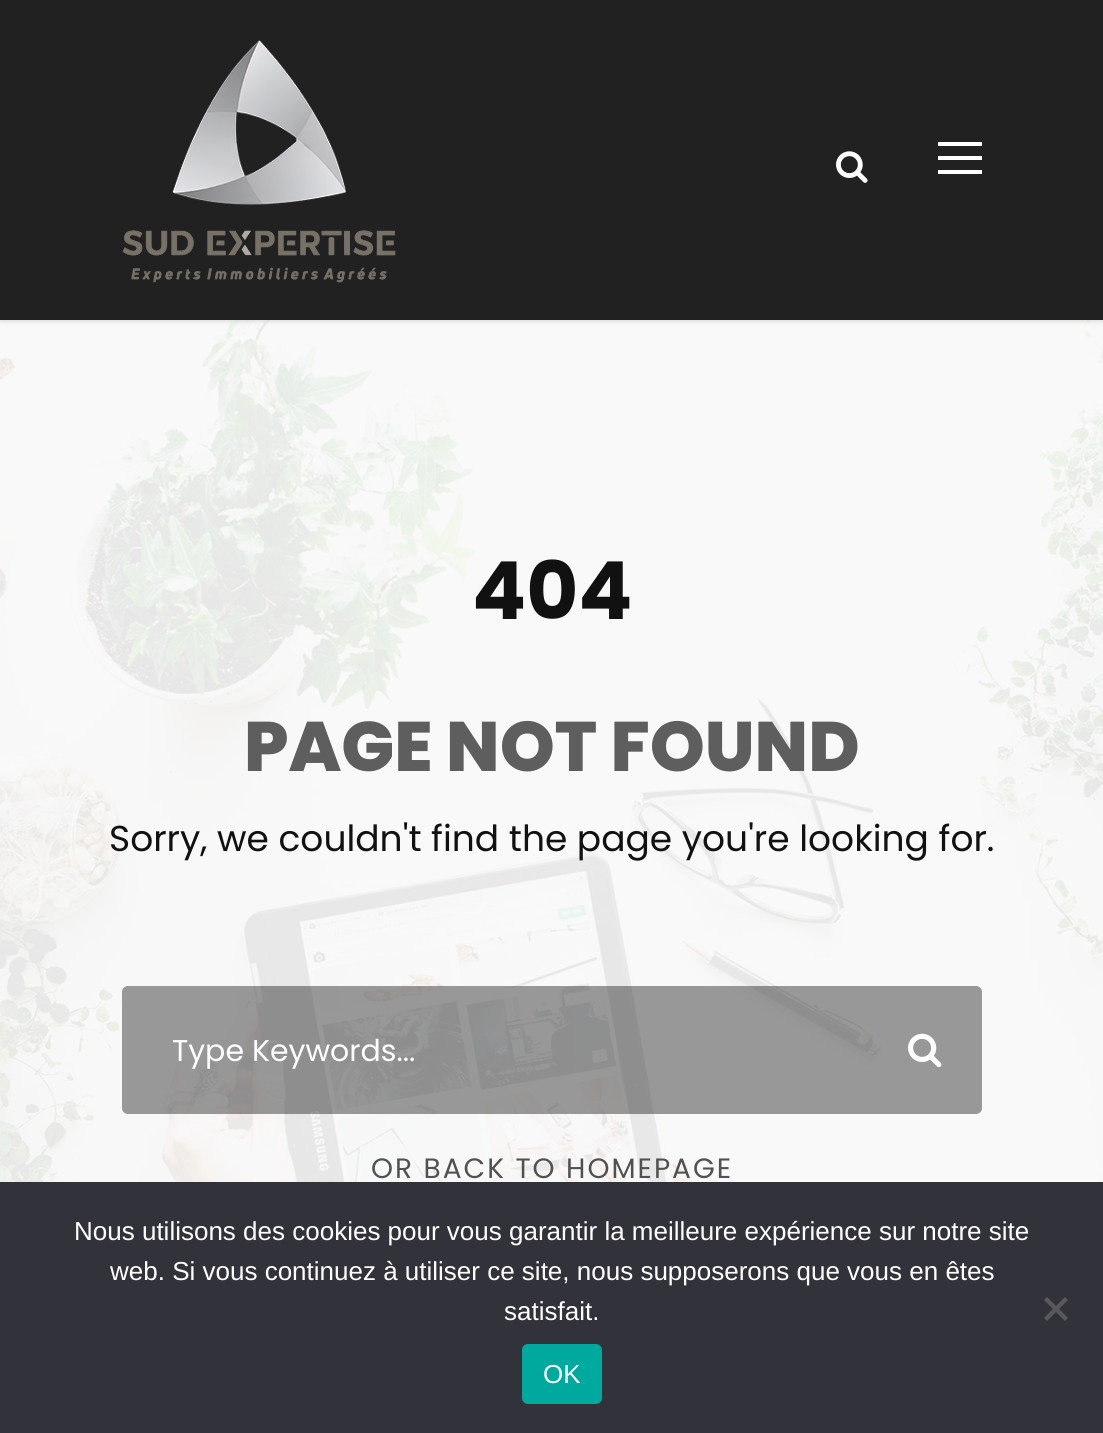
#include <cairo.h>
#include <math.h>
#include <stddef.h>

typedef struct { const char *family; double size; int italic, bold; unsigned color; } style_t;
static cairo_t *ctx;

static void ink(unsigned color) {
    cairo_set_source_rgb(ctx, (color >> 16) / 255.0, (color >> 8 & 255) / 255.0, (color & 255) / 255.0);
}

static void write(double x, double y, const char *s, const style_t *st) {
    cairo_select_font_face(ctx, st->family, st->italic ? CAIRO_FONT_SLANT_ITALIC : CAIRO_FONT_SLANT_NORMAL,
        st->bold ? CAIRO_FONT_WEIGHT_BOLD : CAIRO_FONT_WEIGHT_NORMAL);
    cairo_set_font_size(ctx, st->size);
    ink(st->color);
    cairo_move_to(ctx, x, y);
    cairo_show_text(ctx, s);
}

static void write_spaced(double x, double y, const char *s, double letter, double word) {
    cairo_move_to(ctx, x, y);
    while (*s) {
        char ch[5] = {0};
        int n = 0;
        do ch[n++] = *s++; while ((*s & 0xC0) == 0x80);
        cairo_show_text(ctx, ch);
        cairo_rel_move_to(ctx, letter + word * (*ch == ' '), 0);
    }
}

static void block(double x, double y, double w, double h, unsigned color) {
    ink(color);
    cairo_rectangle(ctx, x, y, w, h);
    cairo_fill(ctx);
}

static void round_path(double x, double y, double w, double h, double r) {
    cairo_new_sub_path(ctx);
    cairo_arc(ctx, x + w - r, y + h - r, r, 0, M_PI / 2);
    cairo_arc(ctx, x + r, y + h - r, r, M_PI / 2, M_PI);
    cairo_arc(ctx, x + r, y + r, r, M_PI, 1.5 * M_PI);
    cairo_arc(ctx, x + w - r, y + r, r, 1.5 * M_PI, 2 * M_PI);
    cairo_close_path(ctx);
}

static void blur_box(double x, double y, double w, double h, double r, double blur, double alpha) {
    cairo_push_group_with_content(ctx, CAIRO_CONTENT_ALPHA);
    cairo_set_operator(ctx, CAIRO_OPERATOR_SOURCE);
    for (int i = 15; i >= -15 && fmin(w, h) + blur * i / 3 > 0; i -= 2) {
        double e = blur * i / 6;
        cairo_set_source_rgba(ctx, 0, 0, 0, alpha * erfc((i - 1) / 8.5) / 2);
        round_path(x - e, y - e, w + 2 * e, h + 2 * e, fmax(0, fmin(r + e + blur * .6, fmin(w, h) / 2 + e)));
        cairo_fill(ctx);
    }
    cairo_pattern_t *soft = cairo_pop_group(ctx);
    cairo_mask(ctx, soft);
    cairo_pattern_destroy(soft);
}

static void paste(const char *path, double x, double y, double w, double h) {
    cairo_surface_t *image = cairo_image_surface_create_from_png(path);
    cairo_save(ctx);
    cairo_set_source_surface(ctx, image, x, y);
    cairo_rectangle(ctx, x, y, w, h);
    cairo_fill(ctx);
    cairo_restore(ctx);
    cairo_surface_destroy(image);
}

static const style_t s1 = {"Poppins", 80, 0, 1, 0x111111};
static const style_t s2 = {"Poppins ExtraBold", 70, 0, 0, 0x5e5e5e};
static const style_t s3 = {"Poppins", 36, 0, 0, 0x111111};
static const style_t s4 = {"Poppins", 30, 0, 0, 0xffffff};
static const style_t s5 = {"Liberation Sans", 26, 0, 0, 0xffffff};

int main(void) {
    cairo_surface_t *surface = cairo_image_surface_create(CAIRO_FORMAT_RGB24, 1103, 1433);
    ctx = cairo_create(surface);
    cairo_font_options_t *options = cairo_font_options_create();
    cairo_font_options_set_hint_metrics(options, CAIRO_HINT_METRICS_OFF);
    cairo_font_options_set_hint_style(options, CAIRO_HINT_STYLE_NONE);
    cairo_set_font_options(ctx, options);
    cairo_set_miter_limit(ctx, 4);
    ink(0xf9f9f9);
    cairo_paint(ctx);
    paste("pic3.png", 0, 320, 1103, 862);
    ink(0x000000);
    blur_box(0, 2, 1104, 320, 0, 2, 0.1);
    block(0, 0, 1103, 320, 0x212121);
    paste("pic1.png", 122, 40, 274, 243);
    paste("pic2.png", 836, 151, 32, 32);
    block(938, 142, 44, 4, 0xffffff);
    block(938, 156, 44, 4, 0xffffff);
    block(938, 170, 44, 4, 0xffffff);
    write(472, 619, "404", &s1);
    write(244, 771, "PAGE NOT FOUND", &s2);
    write(109, 851, "Sorry, we couldn't find the page you're looking for.", &s3);
    cairo_set_source_rgba(ctx, 0.039, 0.039, 0.039, 0.4);
    round_path(122, 986, 860, 128, 6);
    cairo_fill(ctx);
    write(172, 1061, "Type Keywords...", &s4);
    paste("pic4.png", 908, 1033, 34, 35);
    cairo_set_font_size(ctx, 28);
    ink(0x515151);
    write_spaced(371, 1178, "OR BACK TO HOMEPAGE", 2, 0);
    block(0, 1182, 1103, 251, 0x32323a);
    write(74, 1240, "Nous utilisons des cookies pour vous garantir la meilleure expérience sur notre site", &s5);
    write(110, 1280, "web. Si vous continuez à utiliser ce site, nous supposerons que vous en êtes", &s5);
    write(504, 1320, "satisfait.", &s5);
    ink(0x59595d);
    cairo_new_path(ctx);
    cairo_move_to(ctx, 1065, 1297);
    cairo_line_to(ctx, 1068, 1300);
    cairo_line_to(ctx, 1047, 1321);
    cairo_line_to(ctx, 1044, 1318);
    cairo_close_path(ctx);
    cairo_fill(ctx);
    cairo_new_path(ctx);
    cairo_move_to(ctx, 1044, 1300);
    cairo_line_to(ctx, 1047, 1297);
    cairo_line_to(ctx, 1068, 1318);
    cairo_line_to(ctx, 1065, 1321);
    cairo_close_path(ctx);
    cairo_fill(ctx);
    ink(0x00a99d);
    round_path(522, 1344, 80, 60, 6);
    cairo_fill(ctx);
    write(543, 1383, "OK", &s5);
    cairo_surface_write_to_png(surface, "screenshot.png");
    cairo_font_options_destroy(options);
    cairo_destroy(ctx);
    cairo_surface_destroy(surface);
    return 0;
}
